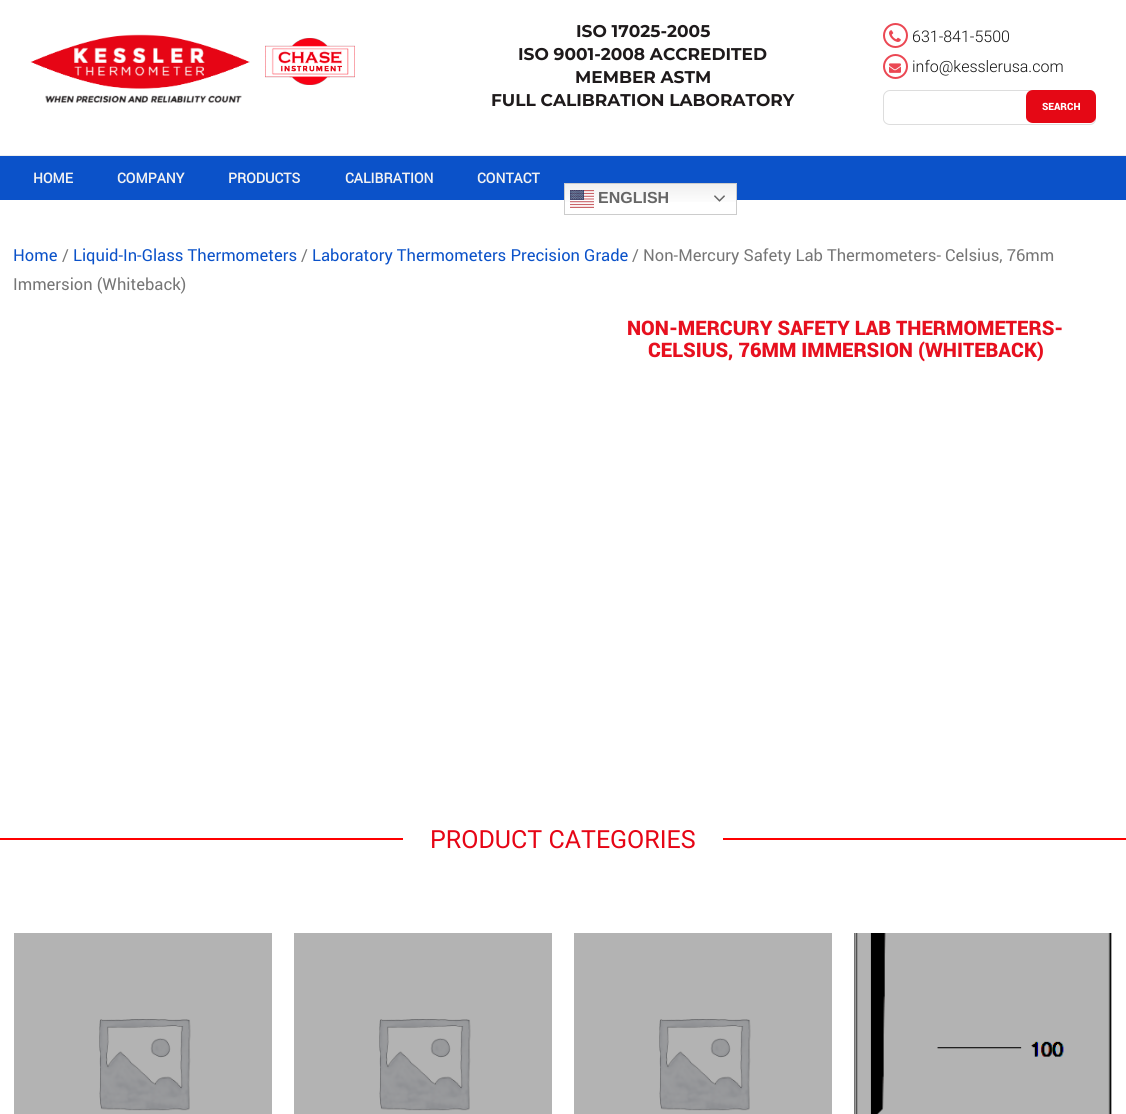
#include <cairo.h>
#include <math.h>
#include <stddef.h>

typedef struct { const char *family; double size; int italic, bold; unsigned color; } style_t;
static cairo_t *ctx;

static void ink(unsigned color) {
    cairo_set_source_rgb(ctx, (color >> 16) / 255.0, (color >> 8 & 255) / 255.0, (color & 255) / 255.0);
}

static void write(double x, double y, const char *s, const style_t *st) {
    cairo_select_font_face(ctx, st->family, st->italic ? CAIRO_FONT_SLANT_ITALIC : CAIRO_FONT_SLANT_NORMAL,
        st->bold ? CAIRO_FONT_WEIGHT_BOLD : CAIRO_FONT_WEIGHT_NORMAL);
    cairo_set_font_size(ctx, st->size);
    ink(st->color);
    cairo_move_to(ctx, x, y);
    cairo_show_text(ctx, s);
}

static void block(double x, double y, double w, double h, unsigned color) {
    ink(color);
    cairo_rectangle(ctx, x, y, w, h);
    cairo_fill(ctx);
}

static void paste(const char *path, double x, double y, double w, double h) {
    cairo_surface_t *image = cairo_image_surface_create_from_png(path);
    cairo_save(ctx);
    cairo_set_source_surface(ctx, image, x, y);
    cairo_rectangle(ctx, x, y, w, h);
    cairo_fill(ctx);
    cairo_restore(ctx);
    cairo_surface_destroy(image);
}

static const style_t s1 = {"Montserrat", 17, 0, 1, 0x1e1a1b};
static const style_t s2 = {"Roboto Light", 16, 0, 0, 0x131313};
static const style_t s3 = {"Roboto Black", 10, 0, 0, 0xffffff};
static const style_t s4 = {"Roboto", 14, 0, 1, 0xf2f2f2};
static const style_t s5 = {"Liberation Sans", 16, 0, 1, 0x666666};
static const style_t s6 = {"Roboto", 16.55, 0, 0, 0x0b52c9};
static const style_t s7 = {"Roboto", 16.55, 0, 0, 0x767676};
static const style_t s8 = {"Roboto Black", 20, 0, 0, 0xe7101f};
static const style_t s9 = {"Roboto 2", 25, 0, 0, 0xe60515};

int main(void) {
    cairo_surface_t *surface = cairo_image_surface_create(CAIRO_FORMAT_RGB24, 1126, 1114);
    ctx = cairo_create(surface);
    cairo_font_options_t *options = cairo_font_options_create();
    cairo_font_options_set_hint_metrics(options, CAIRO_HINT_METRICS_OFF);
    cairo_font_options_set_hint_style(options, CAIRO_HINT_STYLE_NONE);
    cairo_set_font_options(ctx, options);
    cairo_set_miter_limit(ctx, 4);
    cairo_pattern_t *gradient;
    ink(0xffffff);
    cairo_paint(ctx);
    block(574, 933, 258, 181, 0xb3b3b3);
    block(294, 933, 258, 181, 0xb3b3b3);
    block(14, 933, 258, 181, 0xb3b3b3);
    paste("pic1.png", 30, 34, 220, 69);
    paste("pic2.png", 265, 38, 90, 47);
    write(576, 37, "ISO 17025-2005", &s1);
    write(518, 60, "ISO 9001-2008 ACCREDITED", &s1);
    write(575, 83, "MEMBER ASTM", &s1);
    write(491, 106, "FULL CALIBRATION LABORATORY", &s1);
    cairo_new_path(ctx);
    cairo_arc(ctx, 895.5, 35.5, 11.5, 0, 2 * M_PI);
    ink(0xeb4753);
    cairo_stroke(ctx);
    paste("pic3.png", 889, 30, 12, 12);
    write(912, 42, "631-841-5500", &s2);
    cairo_new_path(ctx);
    cairo_arc(ctx, 895.5, 66.5, 11.5, 0, 2 * M_PI);
    ink(0xeb4753);
    cairo_stroke(ctx);
    paste("pic4.png", 889, 63, 12, 10);
    write(912, 72, "info@kesslerusa.com", &s2);
    cairo_new_path(ctx);
    cairo_move_to(ctx, 890, 90.5);
    cairo_line_to(ctx, 1090, 90.5);
    cairo_curve_to(ctx, 1093, 90.5, 1095.5, 93.5, 1095.5, 97);
    cairo_line_to(ctx, 1095.5, 119);
    cairo_curve_to(ctx, 1095.5, 122, 1093, 124.5, 1090, 124.5);
    cairo_line_to(ctx, 890, 124.5);
    cairo_curve_to(ctx, 886.5, 124.5, 883.5, 122, 883.5, 119);
    cairo_line_to(ctx, 883.5, 97);
    cairo_curve_to(ctx, 883.5, 93.5, 886.5, 90.5, 890, 90.5);
    cairo_close_path(ctx);
    ink(0xdddddd);
    cairo_set_line_width(ctx, 1);
    cairo_stroke(ctx);
    ink(0xe50815);
    cairo_new_path(ctx);
    cairo_move_to(ctx, 1033, 90);
    cairo_line_to(ctx, 1090, 90);
    cairo_curve_to(ctx, 1093, 90, 1096, 93, 1096, 97);
    cairo_line_to(ctx, 1096, 117);
    cairo_curve_to(ctx, 1096, 120, 1093, 123, 1090, 123);
    cairo_line_to(ctx, 1033, 123);
    cairo_curve_to(ctx, 1029, 123, 1026, 120, 1026, 117);
    cairo_line_to(ctx, 1026, 97);
    cairo_curve_to(ctx, 1026, 93, 1029, 90, 1033, 90);
    cairo_close_path(ctx);
    cairo_fill(ctx);
    write(1042, 110, "SEARCH", &s3);
    block(0, 156, 1126, 44, 0x0b52c9);
    block(0, 155, 1126, 1, 0xeeeeee);
    write(33, 183, "HOME", &s4);
    write(117, 183, "COMPANY", &s4);
    write(228, 183, "PRODUCTS", &s4);
    write(345, 183, "CALIBRATION", &s4);
    write(477, 183, "CONTACT", &s4);
    gradient = cairo_pattern_create_linear(651, 183, 651, 215);
    cairo_pattern_add_color_stop_rgba(gradient, 0, 0.937, 0.937, 0.937, 1);
    cairo_pattern_add_color_stop_rgba(gradient, 0.7, 1, 1, 1, 1);
    cairo_set_source(ctx, gradient);
    cairo_pattern_destroy(gradient);
    cairo_rectangle(ctx, 565, 184, 171, 18);
    cairo_fill(ctx);
    cairo_rectangle(ctx, 564.5, 183.5, 172, 31);
    ink(0xcccccc);
    cairo_stroke(ctx);
    paste("pic5.png", 570, 190, 24, 18);
    write(598, 203, "ENGLISH", &s5);
    paste("pic6.png", 714, 195, 11, 7);
    write(13, 261, "Home", &s6);
    write(62, 261, "/", &s7);
    write(73, 261, "Liquid-In-Glass Thermometers", &s6);
    write(301, 261, "/", &s7);
    write(312, 261, "Laboratory Thermometers Precision Grade", &s6);
    write(632, 261, "/ Non-Mercury Safety Lab Thermometers- Celsius, 76mm", &s7);
    write(13, 290, "Immersion (Whiteback)", &s7);
    write(627, 335, "NON-MERCURY SAFETY LAB THERMOMETERS-", &s8);
    write(648, 357, "CELSIUS, 76MM IMMERSION (WHITEBACK)", &s8);
    block(0, 838, 1126, 2, 0xff0000);
    block(403, 838, 320, 2, 0xffffff);
    write(430, 848, "PRODUCT CATEGORIES", &s9);
    paste("pic7.png", 99, 1019, 92, 92);
    paste("pic7.png", 379, 1019, 92, 92);
    paste("pic7.png", 659, 1019, 92, 92);
    paste("pic8.png", 854, 933, 258, 181);
    cairo_surface_write_to_png(surface, "screenshot.png");
    cairo_font_options_destroy(options);
    cairo_destroy(ctx);
    cairo_surface_destroy(surface);
    return 0;
}
